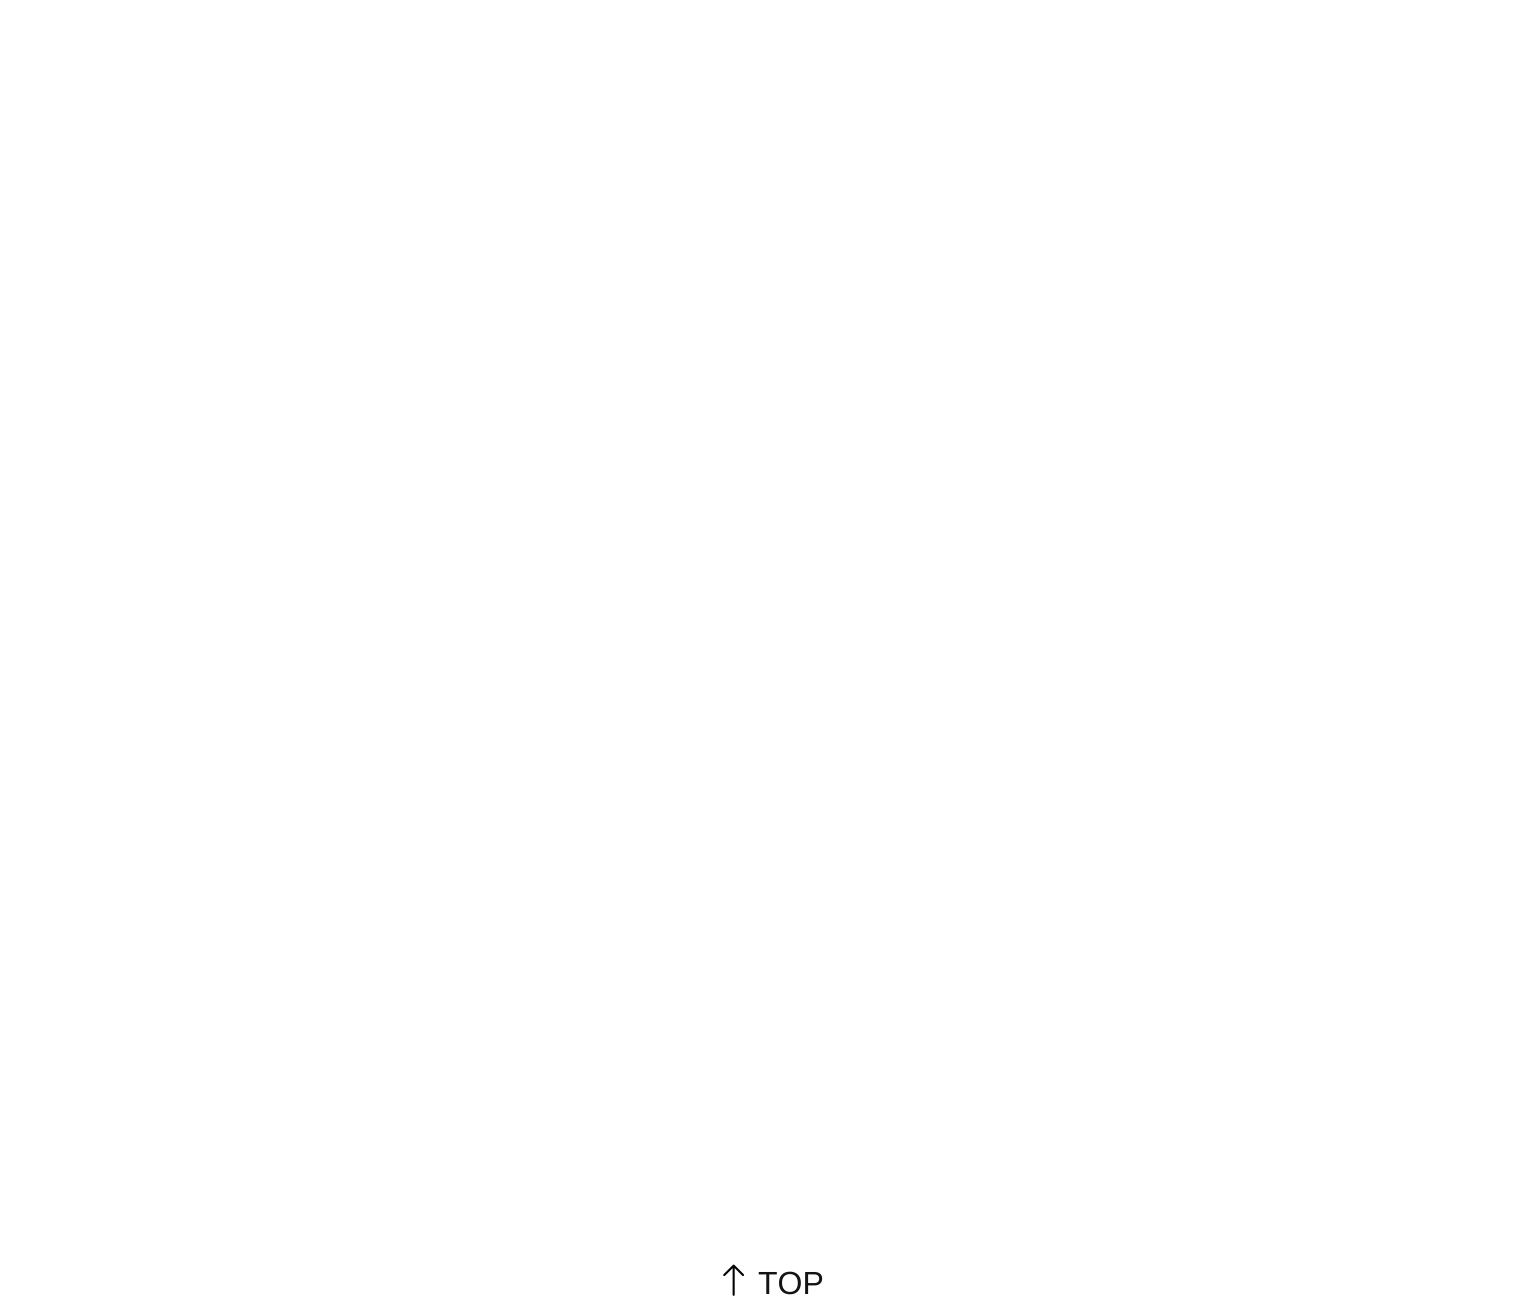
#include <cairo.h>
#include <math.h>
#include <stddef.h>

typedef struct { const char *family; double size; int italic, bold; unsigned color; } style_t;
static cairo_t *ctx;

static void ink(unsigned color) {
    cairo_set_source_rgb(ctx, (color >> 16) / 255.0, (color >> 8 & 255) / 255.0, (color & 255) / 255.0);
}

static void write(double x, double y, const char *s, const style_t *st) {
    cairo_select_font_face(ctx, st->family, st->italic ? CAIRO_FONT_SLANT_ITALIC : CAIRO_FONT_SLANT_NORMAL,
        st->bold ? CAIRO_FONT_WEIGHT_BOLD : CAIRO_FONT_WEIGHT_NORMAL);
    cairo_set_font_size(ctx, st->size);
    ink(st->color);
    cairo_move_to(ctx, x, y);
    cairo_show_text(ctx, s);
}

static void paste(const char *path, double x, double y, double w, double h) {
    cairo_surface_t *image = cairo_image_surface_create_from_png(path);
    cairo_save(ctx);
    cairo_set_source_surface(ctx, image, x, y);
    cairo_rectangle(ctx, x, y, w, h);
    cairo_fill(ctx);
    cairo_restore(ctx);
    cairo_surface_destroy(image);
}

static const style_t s1 = {"Liberation Sans", 32, 0, 0, 0x141414};

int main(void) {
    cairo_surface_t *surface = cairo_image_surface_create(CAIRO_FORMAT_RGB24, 1538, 1304);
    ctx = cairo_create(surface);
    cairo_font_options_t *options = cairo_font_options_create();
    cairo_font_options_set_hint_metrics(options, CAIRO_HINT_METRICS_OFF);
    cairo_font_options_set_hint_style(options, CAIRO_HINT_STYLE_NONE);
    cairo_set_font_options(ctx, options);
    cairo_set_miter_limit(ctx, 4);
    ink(0xffffff);
    cairo_paint(ctx);
    paste("pic1.png", 723, 1264, 21, 32);
    write(758, 1294, "TOP", &s1);
    cairo_surface_write_to_png(surface, "screenshot.png");
    cairo_font_options_destroy(options);
    cairo_destroy(ctx);
    cairo_surface_destroy(surface);
    return 0;
}
